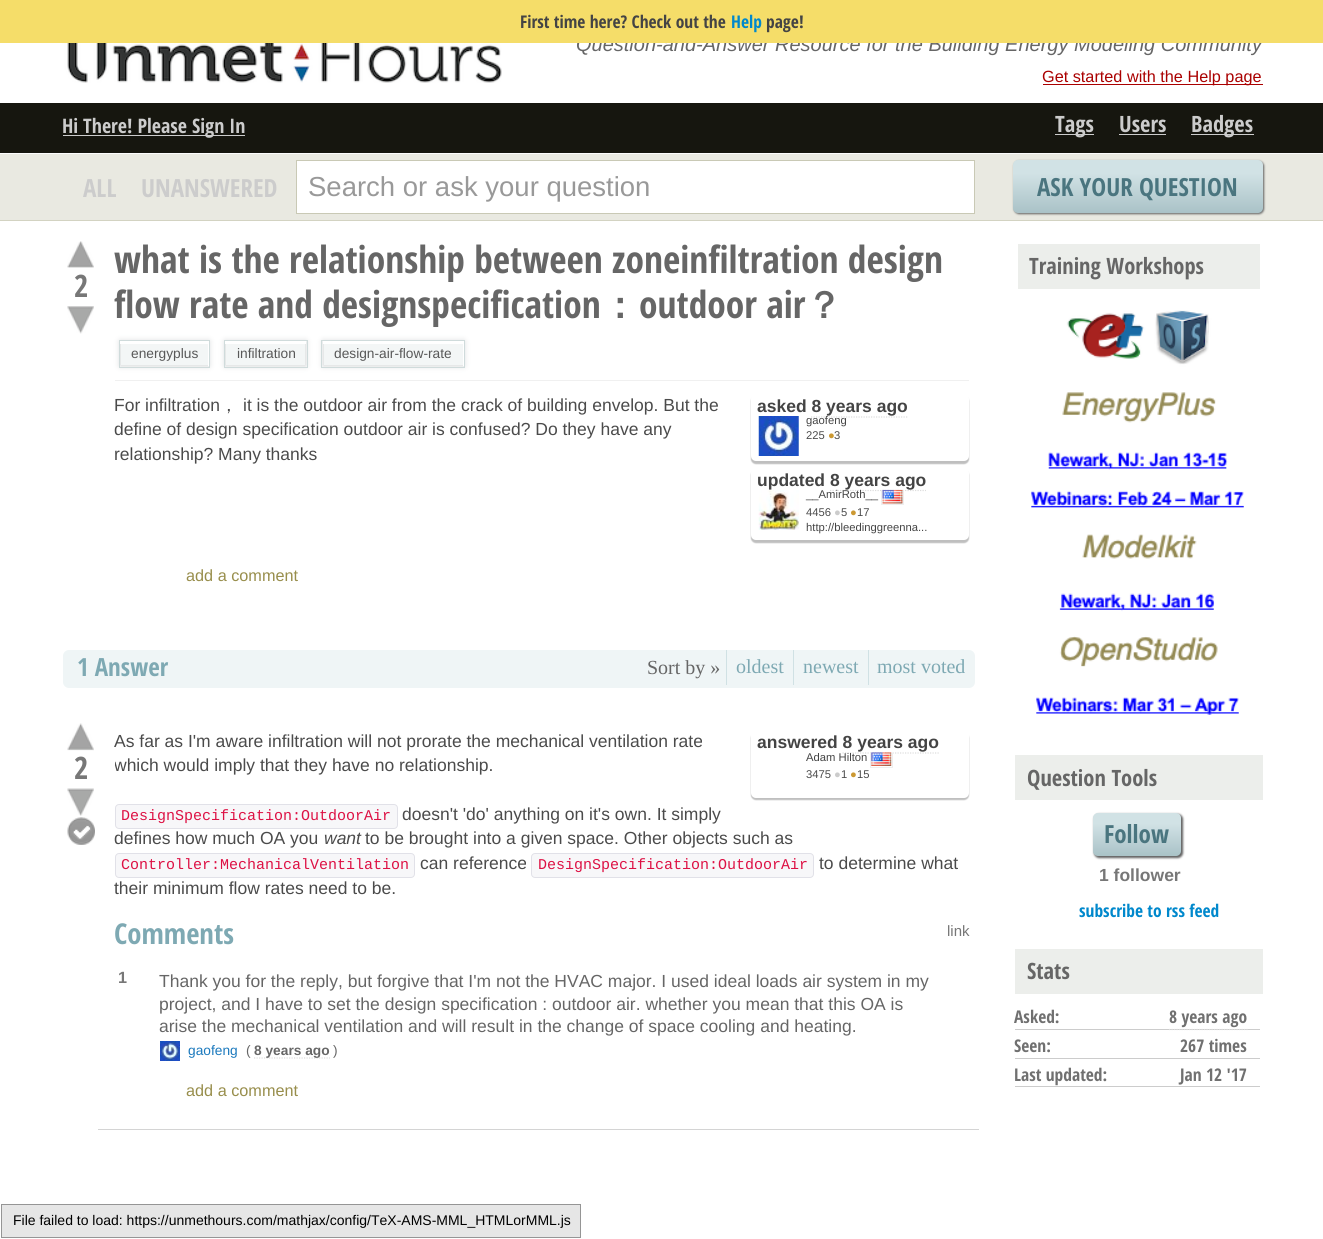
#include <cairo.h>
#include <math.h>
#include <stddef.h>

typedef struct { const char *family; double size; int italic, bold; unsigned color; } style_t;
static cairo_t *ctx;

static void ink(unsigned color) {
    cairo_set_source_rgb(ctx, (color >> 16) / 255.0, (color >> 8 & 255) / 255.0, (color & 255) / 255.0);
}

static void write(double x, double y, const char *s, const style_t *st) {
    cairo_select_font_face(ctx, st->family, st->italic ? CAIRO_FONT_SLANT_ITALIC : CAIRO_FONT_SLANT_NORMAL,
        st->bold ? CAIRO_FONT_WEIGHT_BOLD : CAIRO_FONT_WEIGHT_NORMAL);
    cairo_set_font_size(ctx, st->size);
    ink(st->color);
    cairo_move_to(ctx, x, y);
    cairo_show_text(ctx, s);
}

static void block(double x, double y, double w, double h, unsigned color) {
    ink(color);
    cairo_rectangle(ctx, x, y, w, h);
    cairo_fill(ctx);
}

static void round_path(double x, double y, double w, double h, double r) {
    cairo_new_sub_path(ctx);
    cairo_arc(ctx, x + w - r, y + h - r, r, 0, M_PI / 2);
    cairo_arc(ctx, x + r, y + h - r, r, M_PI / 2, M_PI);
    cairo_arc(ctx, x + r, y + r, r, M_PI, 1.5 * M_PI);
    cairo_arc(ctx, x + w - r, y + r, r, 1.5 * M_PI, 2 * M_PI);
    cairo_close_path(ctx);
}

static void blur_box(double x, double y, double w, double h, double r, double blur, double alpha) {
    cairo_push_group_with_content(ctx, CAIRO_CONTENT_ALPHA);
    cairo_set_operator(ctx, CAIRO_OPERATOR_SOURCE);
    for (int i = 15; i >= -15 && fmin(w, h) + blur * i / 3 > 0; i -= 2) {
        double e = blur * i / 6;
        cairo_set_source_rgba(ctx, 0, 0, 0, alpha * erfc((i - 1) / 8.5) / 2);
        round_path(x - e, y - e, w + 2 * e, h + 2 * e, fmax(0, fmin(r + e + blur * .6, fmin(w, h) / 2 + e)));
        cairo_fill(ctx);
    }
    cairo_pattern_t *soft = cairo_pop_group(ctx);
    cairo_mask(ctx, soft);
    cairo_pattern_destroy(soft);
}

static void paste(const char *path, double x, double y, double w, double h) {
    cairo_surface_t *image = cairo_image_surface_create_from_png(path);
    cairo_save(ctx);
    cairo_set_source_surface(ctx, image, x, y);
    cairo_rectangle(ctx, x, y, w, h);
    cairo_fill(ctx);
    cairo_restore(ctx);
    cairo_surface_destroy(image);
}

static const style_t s1 = {"Liberation Sans", 20, 1, 0, 0x666666};
static const style_t s2 = {"Open Sans Condensed", 17.5, 0, 1, 0x444444};
static const style_t s3 = {"Open Sans Condensed", 17.5, 0, 1, 0x0088cc};
static const style_t s4 = {"Liberation Sans", 16.25, 0, 0, 0xaa0000};
static const style_t s5 = {"Open Sans Condensed", 20, 0, 1, 0xcccccc};
static const style_t s6 = {"Open Sans Condensed", 22.5, 0, 1, 0xcccccc};
static const style_t s7 = {"Open Sans Condensed", 25, 0, 1, 0xcccccc};
static const style_t s8 = {"Liberation Sans", 27.5, 0, 0, 0x999999};
static const style_t s9 = {"Open Sans Condensed", 25, 0, 1, 0x4a757f};
static const style_t s10 = {"Open Sans Condensed", 31, 0, 1, 0x777777};
static const style_t s11 = {"Open Sans Condensed", 37.5, 0, 1, 0x666666};
static const style_t s12 = {"WenQuanYi Zen Hei", 37.5, 0, 1, 0x666666};
static const style_t s13 = {"Liberation Sans", 13.75, 0, 0, 0x585858};
static const style_t s14 = {"Liberation Sans", 17.5, 0, 0, 0x4b4b4b};
static const style_t s15 = {"WenQuanYi Zen Hei Medium", 17.5, 0, 0, 0x4b4b4b};
static const style_t s16 = {"Liberation Sans", 17.5, 0, 1, 0x444444};
static const style_t s17 = {"Liberation Sans", 11.25, 0, 0, 0x444444};
static const style_t s18 = {"Liberation Sans", 11.25, 0, 0, 0x4b4b4b};
static const style_t s19 = {"Liberation Sans", 11.25, 0, 0, 0xcc9933};
static const style_t s20 = {"Liberation Sans", 11.25, 0, 0, 0xcccccc};
static const style_t s21 = {"Liberation Sans", 16.25, 0, 0, 0x988e4c};
static const style_t s22 = {"Open Sans Condensed", 25, 0, 1, 0x7ea9b3};
static const style_t s23 = {"Liberation Serif", 20, 0, 0, 0x666666};
static const style_t s24 = {"Liberation Serif", 20, 0, 0, 0x7ea9b3};
static const style_t s25 = {"Liberation Mono", 15, 0, 0, 0xdd1144};
static const style_t s26 = {"Liberation Sans", 17.5, 1, 0, 0x4b4b4b};
static const style_t s27 = {"Open Sans Condensed", 28.75, 0, 1, 0x7ea9b3};
static const style_t s28 = {"Liberation Sans", 15, 0, 0, 0x777777};
static const style_t s29 = {"Liberation Sans", 16.25, 0, 1, 0x777777};
static const style_t s30 = {"Liberation Sans", 17.5, 0, 0, 0x666666};
static const style_t s31 = {"Liberation Sans", 13.75, 0, 0, 0x1b79bd};
static const style_t s32 = {"Liberation Sans", 13.75, 0, 0, 0x666666};
static const style_t s33 = {"Liberation Sans", 13.75, 0, 1, 0x666666};
static const style_t s34 = {"Open Sans Condensed", 22.5, 0, 1, 0x666666};
static const style_t s35 = {"Liberation Sans", 17.5, 0, 1, 0x777777};
static const style_t s36 = {"Open Sans Condensed", 17.5, 0, 1, 0x707070};
static const style_t s37 = {"Liberation Sans", 14, 0, 0, 0x000000};

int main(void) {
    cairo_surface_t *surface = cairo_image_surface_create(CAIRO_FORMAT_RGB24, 1323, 1239);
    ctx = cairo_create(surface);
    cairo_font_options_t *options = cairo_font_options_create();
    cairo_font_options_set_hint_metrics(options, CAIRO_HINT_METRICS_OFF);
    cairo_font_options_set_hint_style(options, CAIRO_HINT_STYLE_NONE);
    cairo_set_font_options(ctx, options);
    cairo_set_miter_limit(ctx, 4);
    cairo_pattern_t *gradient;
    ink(0xffffff);
    cairo_paint(ctx);
    write(576, 51, "Question-and-Answer Resource for the Building Energy Modeling Community", &s1);
    block(0, 0, 1323, 43, 0xf5dd69);
    write(520, 28, "First time here? Check out the", &s2);
    write(731, 28, "Help", &s3);
    write(766, 28, "page!", &s2);
    paste("pic1.png", 62, 43, 440, 40);
    block(1043, 84, 220, 1, 0xaa0000);
    write(1042, 82, "Get started with the Help page", &s4);
    block(0, 103, 1323, 50, 0x16160f);
    block(63, 135, 182, 1, 0xcccccc);
    write(62, 133, "Hi There! Please Sign In", &s5);
    block(1055, 134, 39, 1, 0xcccccc);
    write(1055, 132, "Tags", &s6);
    write(1119, 132, "Users", &s6);
    block(1119, 134, 47, 1, 0xcccccc);
    block(1191, 134, 63, 1, 0xcccccc);
    write(1191, 132, "Badges", &s6);
    block(0, 154, 1323, 66, 0xe9e9e1);
    block(0, 153, 1323, 1, 0xfcfcfc);
    block(0, 220, 1323, 1, 0xd3d3c2);
    write(83, 197, "ALL", &s7);
    write(141, 197, "UNANSWERED", &s7);
    ink(0xffffff);
    cairo_rectangle(ctx, 296.5, 160.5, 678, 53);
    cairo_fill_preserve(ctx);
    ink(0xc9c9b5);
    cairo_set_line_width(ctx, 1);
    cairo_stroke(ctx);
    write(308, 196, "Search or ask your question", &s8);
    ink(0x636363);
    blur_box(1014, 161, 250, 53, 5, 1, 1);
    gradient = cairo_pattern_create_linear(1138, 160, 1138, 213);
    cairo_pattern_add_color_stop_rgba(gradient, 0, 0.82, 0.886, 0.898, 1);
    cairo_pattern_add_color_stop_rgba(gradient, 0.25, 0.82, 0.886, 0.898, 1);
    cairo_pattern_add_color_stop_rgba(gradient, 1, 0.663, 0.761, 0.78, 1);
    cairo_set_source(ctx, gradient);
    cairo_pattern_destroy(gradient);
    round_path(1013, 160, 250, 53, 5);
    cairo_fill(ctx);
    write(1037, 196, "ASK YOUR QUESTION", &s9);
    paste("pic2.png", 67, 241, 27, 27);
    write(74, 297, "2", &s10);
    paste("pic3.png", 67, 306, 27, 28);
    write(114, 273, "what is the relationship between zoneinfiltration design", &s11);
    write(114, 318, "flow rate and designspecification", &s11);
    write(601, 318, "：", &s12);
    write(639, 318, "outdoor air", &s11);
    write(805, 318, "？", &s12);
    ink(0xd3d6d7);
    blur_box(120, 341, 89, 25, 0, 3, 1);
    block(121, 344, 87, 21, 0xf3f6f6);
    block(120, 341, 89, 3, 0xffffff);
    block(208, 341, 1, 25, 0xffffff);
    cairo_rectangle(ctx, 119.5, 340.5, 90, 27);
    ink(0xcfdbdb);
    cairo_stroke(ctx);
    write(131, 358, "energyplus", &s13);
    ink(0xd3d6d7);
    blur_box(225, 341, 81, 25, 0, 3, 1);
    block(226, 344, 79, 21, 0xf3f6f6);
    block(225, 341, 81, 3, 0xffffff);
    cairo_rectangle(ctx, 224.5, 340.5, 83, 27);
    ink(0xcfdbdb);
    cairo_stroke(ctx);
    write(237, 358, "infiltration", &s13);
    ink(0xd3d6d7);
    blur_box(323, 341, 141, 25, 0, 3, 1);
    block(324, 344, 139, 21, 0xf3f6f6);
    block(323, 341, 141, 3, 0xffffff);
    block(463, 341, 1, 25, 0xffffff);
    cairo_rectangle(ctx, 321.5, 340.5, 143, 27);
    ink(0xcfdbdb);
    cairo_stroke(ctx);
    write(334, 358, "design-air-flow-rate", &s13);
    block(115, 380, 854, 1, 0xf0f0f0);
    write(114, 411, "For infiltration", &s14);
    write(220, 411, "，", &s15);
    write(243, 411, "it is the outdoor air from the crack of building envelop. But the", &s14);
    write(114, 435, "define of design specification outdoor air is confused? Do they have any", &s14);
    write(114, 460, "relationship? Many thanks", &s14);
    ink(0xbfbfbf);
    blur_box(751, 396, 218, 68, 5, 0.5, 1);
    ink(0xffffff);
    round_path(751, 394, 218, 67, 5);
    cairo_fill(ctx);
    write(757, 412, "asked 8 years ago", &s16);
    cairo_new_path(ctx);
    cairo_move_to(ctx, 811, 417);
    cairo_line_to(ctx, 907.5, 417);
    ink(0xdddddd);
    cairo_set_line_width(ctx, 1.2);
    cairo_set_dash(ctx, (double[]){1.25, 1.25}, 2, 0);
    cairo_stroke(ctx);
    paste("pic4.png", 758, 416, 41, 40);
    write(806, 424, "gaofeng", &s17);
    write(806, 439, "225", &s18);
    write(828, 439, "●", &s19);
    write(834, 439, "3", &s18);
    ink(0xbfbfbf);
    blur_box(751, 470, 218, 73, 5, 0.5, 1);
    ink(0xffffff);
    round_path(751, 468, 218, 72, 5);
    cairo_fill(ctx);
    write(757, 486, "updated", &s16);
    cairo_new_path(ctx);
    cairo_move_to(ctx, 830, 490.5);
    cairo_line_to(ctx, 926, 490.5);
    ink(0xdddddd);
    cairo_stroke(ctx);
    write(830, 486, "8 years ago", &s16);
    paste("pic5.png", 758, 489, 41, 41);
    cairo_save(ctx);
    cairo_rectangle(ctx, 756, 490, 208, 45);
    cairo_clip(ctx);
    cairo_rectangle(ctx, 881.5, 489.5, 22, 15);
    ink(0xeeeeee);
    cairo_set_line_width(ctx, 1);
    cairo_set_dash(ctx, NULL, 0, 0);
    cairo_stroke(ctx);
    cairo_restore(ctx);
    write(806, 498, "__AmirRoth__", &s17);
    paste("pic6.png", 882, 489, 21, 15);
    write(806, 516, "4456", &s18);
    write(834, 516, "●", &s20);
    write(841, 516, "5", &s18);
    write(850, 516, "●", &s19);
    write(857, 516, "17", &s18);
    write(806, 531, "http://bleedinggreenna...", &s17);
    write(186, 581, "add a comment", &s21);
    ink(0xeff5f6);
    round_path(63, 650, 912, 38, 6);
    cairo_fill(ctx);
    write(77, 676, "1 Answer", &s22);
    write(647, 674, "Sort by »", &s23);
    block(726, 650, 1, 35, 0xd0e1e4);
    write(736, 673, "oldest", &s24);
    block(793, 650, 1, 35, 0xd0e1e4);
    write(803, 673, "newest", &s24);
    block(868, 650, 1, 35, 0xd0e1e4);
    write(877, 673, "most voted", &s24);
    paste("pic7.png", 67, 723, 27, 28);
    write(74, 779, "2", &s10);
    paste("pic8.png", 67, 788, 27, 28);
    paste("pic9.png", 67, 817, 28, 28);
    block(98, 1129, 881, 1, 0xd4d4d4);
    write(114, 747, "As far as I'm aware infiltration will not prorate the mechanical ventilation rate", &s14);
    cairo_save(ctx);
    cairo_rectangle(ctx, 115, 730, 854, 178);
    cairo_clip(ctx);
    write(114, 771, "which would imply that they have no relationship.", &s14);
    cairo_restore(ctx);
    ink(0xf7f7f9);
    round_path(115.5, 804.5, 282, 24, 3.5);
    cairo_fill_preserve(ctx);
    ink(0xe1e1e8);
    cairo_set_line_width(ctx, 1);
    cairo_set_dash(ctx, NULL, 0, 0);
    cairo_stroke(ctx);
    write(121, 820, "DesignSpecification:OutdoorAir", &s25);
    write(402, 820, "doesn't 'do' anything on it's own. It simply", &s14);
    write(114, 844, "defines how much OA you", &s14);
    write(324, 844, "want", &s26);
    write(365, 844, "to be brought into a given space. Other objects such as", &s14);
    ink(0xf7f7f9);
    round_path(115.5, 853.5, 299, 24, 3.5);
    cairo_fill_preserve(ctx);
    ink(0xe1e1e8);
    cairo_stroke(ctx);
    write(121, 869, "Controller:MechanicalVentilation", &s25);
    write(420, 869, "can reference", &s14);
    ink(0xf7f7f9);
    round_path(531.5, 853.5, 282, 24, 3.5);
    cairo_fill_preserve(ctx);
    ink(0xe1e1e8);
    cairo_stroke(ctx);
    write(538, 869, "DesignSpecification:OutdoorAir", &s25);
    write(819, 869, "to determine what", &s14);
    write(114, 894, "their minimum flow rates need to be.", &s14);
    ink(0xbfbfbf);
    blur_box(751, 733, 218, 67, 5, 0.5, 1);
    ink(0xffffff);
    round_path(751, 730, 218, 68, 5);
    cairo_fill(ctx);
    write(757, 748, "answered 8 years ago", &s16);
    cairo_new_path(ctx);
    cairo_move_to(ctx, 842.5, 753);
    cairo_line_to(ctx, 939, 753);
    ink(0xdddddd);
    cairo_set_line_width(ctx, 1.2);
    cairo_set_dash(ctx, (double[]){1.25, 1.25}, 2, 0);
    cairo_stroke(ctx);
    cairo_save(ctx);
    cairo_rectangle(ctx, 756, 753, 208, 40);
    cairo_clip(ctx);
    cairo_rectangle(ctx, 870.5, 751.5, 22, 16);
    ink(0xeeeeee);
    cairo_set_line_width(ctx, 1);
    cairo_set_dash(ctx, NULL, 0, 0);
    cairo_stroke(ctx);
    write(806, 761, "Adam Hilton", &s17);
    cairo_restore(ctx);
    paste("pic10.png", 871, 752, 21, 14);
    write(806, 778, "3475", &s18);
    write(834, 778, "●", &s20);
    write(841, 778, "1", &s18);
    write(850, 778, "●", &s19);
    write(857, 778, "15", &s18);
    write(114, 944, "Comments", &s27);
    write(947, 936, "link", &s28);
    write(118, 983, "1", &s29);
    write(159, 987, "Thank you for the reply, but forgive that I'm not the HVAC major. I used ideal loads air system in my", &s30);
    write(159, 1010, "project, and I have to set the design specification : outdoor air. whether you mean that this OA is", &s30);
    write(159, 1032, "arise the mechanical ventilation and will result in the change of space cooling and heating.", &s30);
    paste("pic11.png", 160, 1041, 20, 20);
    write(188, 1055, "gaofeng", &s31);
    write(246, 1055, "(", &s32);
    cairo_new_path(ctx);
    cairo_move_to(ctx, 254, 1058);
    cairo_line_to(ctx, 330, 1058);
    ink(0xdddddd);
    cairo_stroke(ctx);
    write(254, 1055, "8 years ago", &s33);
    write(333, 1055, ")", &s32);
    write(186, 1096, "add a comment", &s21);
    block(1018, 244, 242, 45, 0xeceeeb);
    write(1029, 274, "Training Workshops", &s34);
    paste("pic12.png", 1031, 310, 213, 405);
    block(1015, 755, 248, 45, 0xeceeeb);
    write(1027, 786, "Question Tools", &s34);
    ink(0x636363);
    blur_box(1094, 814, 89, 44, 5, 1, 1);
    gradient = cairo_pattern_create_linear(1137, 813, 1137, 856);
    cairo_pattern_add_color_stop_rgba(gradient, 0, 0.82, 0.886, 0.898, 1);
    cairo_pattern_add_color_stop_rgba(gradient, 0.25, 0.82, 0.886, 0.898, 1);
    cairo_pattern_add_color_stop_rgba(gradient, 1, 0.663, 0.761, 0.78, 1);
    cairo_set_source(ctx, gradient);
    cairo_pattern_destroy(gradient);
    round_path(1093, 813, 88, 43, 5);
    cairo_fill(ctx);
    write(1104, 843, "Follow", &s9);
    write(1099, 881, "1 follower", &s35);
    write(1079, 917, "subscribe to rss feed", &s3);
    block(1015, 949, 248, 45, 0xeceeeb);
    write(1027, 979, "Stats", &s34);
    block(1015, 1029, 245, 1, 0xcccccc);
    write(1014, 1023, "Asked:", &s36);
    write(1169, 1023, "8 years ago", &s36);
    cairo_new_path(ctx);
    cairo_move_to(ctx, 1169, 1029.5);
    cairo_line_to(ctx, 1247.5, 1029.5);
    ink(0xdddddd);
    cairo_stroke(ctx);
    block(1015, 1058, 245, 1, 0xcccccc);
    write(1014, 1052, "Seen:", &s36);
    write(1180, 1052, "267 times", &s36);
    block(1015, 1086, 245, 1, 0xcccccc);
    write(1014, 1081, "Last updated:", &s36);
    write(1180, 1081, "Jan 12 '17", &s36);
    ink(0xe6e6e6);
    cairo_rectangle(ctx, 1.5, 1204.5, 579, 33);
    cairo_fill_preserve(ctx);
    ink(0x959595);
    cairo_set_line_width(ctx, 1);
    cairo_set_dash(ctx, NULL, 0, 0);
    cairo_stroke(ctx);
    write(13, 1225, "File failed to load: https://unmethours.com/mathjax/config/TeX-AMS-MML_HTMLorMML.js", &s37);
    cairo_surface_write_to_png(surface, "screenshot.png");
    cairo_font_options_destroy(options);
    cairo_destroy(ctx);
    cairo_surface_destroy(surface);
    return 0;
}
